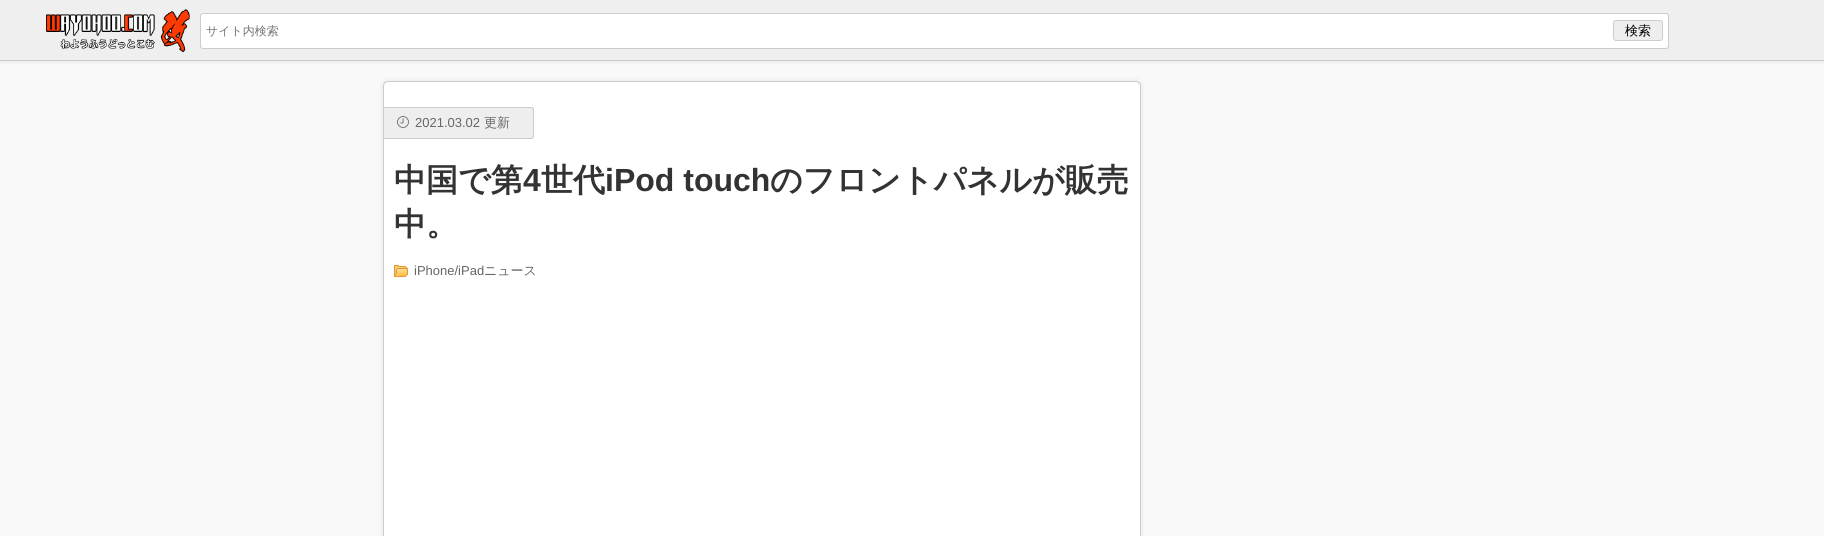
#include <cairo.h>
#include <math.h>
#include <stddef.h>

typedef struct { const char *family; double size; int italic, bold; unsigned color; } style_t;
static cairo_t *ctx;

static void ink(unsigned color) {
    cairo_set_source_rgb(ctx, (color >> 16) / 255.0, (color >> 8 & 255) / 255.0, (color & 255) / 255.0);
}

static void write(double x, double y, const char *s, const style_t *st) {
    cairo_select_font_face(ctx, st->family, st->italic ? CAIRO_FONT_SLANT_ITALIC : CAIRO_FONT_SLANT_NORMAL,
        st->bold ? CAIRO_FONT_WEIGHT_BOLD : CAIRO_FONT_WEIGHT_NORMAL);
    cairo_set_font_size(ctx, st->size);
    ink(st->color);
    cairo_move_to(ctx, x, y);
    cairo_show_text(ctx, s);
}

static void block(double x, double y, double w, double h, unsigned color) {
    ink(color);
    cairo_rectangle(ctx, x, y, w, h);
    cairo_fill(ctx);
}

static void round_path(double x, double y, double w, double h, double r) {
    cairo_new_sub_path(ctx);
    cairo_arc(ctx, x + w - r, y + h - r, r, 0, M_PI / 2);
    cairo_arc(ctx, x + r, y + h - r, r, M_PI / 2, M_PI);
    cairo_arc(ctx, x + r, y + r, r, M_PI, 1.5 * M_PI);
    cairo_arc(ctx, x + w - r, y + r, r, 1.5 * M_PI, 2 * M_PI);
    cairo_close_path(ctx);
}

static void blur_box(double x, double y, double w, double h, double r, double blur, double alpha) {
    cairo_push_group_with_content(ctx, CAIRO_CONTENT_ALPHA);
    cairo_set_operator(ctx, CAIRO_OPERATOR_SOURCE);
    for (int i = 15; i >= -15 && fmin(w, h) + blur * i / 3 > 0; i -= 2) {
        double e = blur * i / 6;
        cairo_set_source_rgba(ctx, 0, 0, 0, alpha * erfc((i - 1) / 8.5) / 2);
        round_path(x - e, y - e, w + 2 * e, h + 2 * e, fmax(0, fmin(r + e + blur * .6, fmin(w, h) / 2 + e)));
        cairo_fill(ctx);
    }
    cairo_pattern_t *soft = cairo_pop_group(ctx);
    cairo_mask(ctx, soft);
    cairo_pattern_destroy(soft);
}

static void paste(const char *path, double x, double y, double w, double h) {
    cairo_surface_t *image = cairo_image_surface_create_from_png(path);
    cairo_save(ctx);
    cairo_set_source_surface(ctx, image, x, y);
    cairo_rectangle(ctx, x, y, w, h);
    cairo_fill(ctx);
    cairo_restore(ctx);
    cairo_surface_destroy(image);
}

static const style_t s1 = {"WenQuanYi Zen Hei Medium", 12, 0, 0, 0x757575};
static const style_t s2 = {"WenQuanYi Zen Hei Medium", 13, 0, 0, 0x000000};
static const style_t s3 = {"Liberation Sans", 13, 0, 0, 0x666666};
static const style_t s4 = {"WenQuanYi Zen Hei Medium", 13, 0, 0, 0x666666};
static const style_t s5 = {"WenQuanYi Zen Hei", 32, 0, 1, 0x333333};
static const style_t s6 = {"Liberation Sans", 32, 0, 1, 0x333333};

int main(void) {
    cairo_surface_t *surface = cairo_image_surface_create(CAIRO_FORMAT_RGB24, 1824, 536);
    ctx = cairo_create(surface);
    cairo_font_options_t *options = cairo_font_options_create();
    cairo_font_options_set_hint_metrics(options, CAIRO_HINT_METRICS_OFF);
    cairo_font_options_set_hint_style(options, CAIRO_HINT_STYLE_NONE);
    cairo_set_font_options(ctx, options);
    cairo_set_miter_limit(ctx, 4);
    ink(0xf9f9f9);
    cairo_paint(ctx);
    ink(0x000000);
    blur_box(0, 0, 1824, 61, 0, 2.5, 0.1);
    block(0, 0, 1824, 60, 0xefefef);
    block(0, 60, 1824, 1, 0xcccccc);
    paste("pic1.png", 46, 9, 144, 44);
    ink(0xffffff);
    round_path(200.5, 13.5, 1468, 35, 2.5);
    cairo_fill_preserve(ctx);
    ink(0xcccccc);
    cairo_set_line_width(ctx, 1);
    cairo_stroke(ctx);
    write(206, 35, "サイト内検索", &s1);
    ink(0xeeeeee);
    round_path(1613.5, 20.5, 49, 20, 2.5);
    cairo_fill_preserve(ctx);
    ink(0xcccccc);
    cairo_stroke(ctx);
    write(1625, 35, "検索", &s2);
    ink(0x000000);
    blur_box(383, 81, 758, 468, 5, 2.5, 0.1);
    ink(0xffffff);
    cairo_new_path(ctx);
    cairo_move_to(ctx, 388, 81);
    cairo_line_to(ctx, 1136, 81);
    cairo_curve_to(ctx, 1139, 81, 1141, 83, 1141, 86);
    cairo_line_to(ctx, 1141, 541);
    cairo_line_to(ctx, 383, 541);
    cairo_line_to(ctx, 383, 86);
    cairo_curve_to(ctx, 383, 83, 385, 81, 388, 81);
    cairo_close_path(ctx);
    cairo_fill(ctx);
    ink(0xcccccc);
    cairo_set_fill_rule(ctx, CAIRO_FILL_RULE_EVEN_ODD);
    cairo_new_path(ctx);
    cairo_move_to(ctx, 388, 81);
    cairo_line_to(ctx, 1136, 81);
    cairo_curve_to(ctx, 1139, 81, 1141, 83, 1141, 86);
    cairo_line_to(ctx, 1141, 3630);
    cairo_line_to(ctx, 383, 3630);
    cairo_line_to(ctx, 383, 86);
    cairo_curve_to(ctx, 383, 83, 385, 81, 388, 81);
    cairo_close_path(ctx);
    cairo_move_to(ctx, 388, 82);
    cairo_line_to(ctx, 1136, 82);
    cairo_curve_to(ctx, 1138, 82, 1140, 84, 1140, 86);
    cairo_line_to(ctx, 1140, 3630);
    cairo_line_to(ctx, 384, 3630);
    cairo_line_to(ctx, 384, 86);
    cairo_curve_to(ctx, 384, 84, 386, 82, 388, 82);
    cairo_close_path(ctx);
    cairo_fill(ctx);
    ink(0xeeeeee);
    cairo_new_path(ctx);
    cairo_move_to(ctx, 384, 107);
    cairo_line_to(ctx, 531, 107);
    cairo_curve_to(ctx, 532.5, 107, 534, 108.5, 534, 110);
    cairo_line_to(ctx, 534, 136);
    cairo_curve_to(ctx, 534, 137.5, 532.5, 139, 531, 139);
    cairo_line_to(ctx, 384, 139);
    cairo_close_path(ctx);
    cairo_fill(ctx);
    ink(0xcccccc);
    cairo_new_path(ctx);
    cairo_move_to(ctx, 384, 107);
    cairo_line_to(ctx, 531, 107);
    cairo_curve_to(ctx, 533, 107, 534, 108, 534, 110);
    cairo_line_to(ctx, 534, 136);
    cairo_curve_to(ctx, 534, 138, 533, 139, 531, 139);
    cairo_line_to(ctx, 384, 139);
    cairo_close_path(ctx);
    cairo_move_to(ctx, 384, 108);
    cairo_line_to(ctx, 531, 108);
    cairo_curve_to(ctx, 532, 108, 533, 109, 533, 110);
    cairo_line_to(ctx, 533, 136);
    cairo_curve_to(ctx, 533, 137, 532, 138, 531, 138);
    cairo_line_to(ctx, 384, 138);
    cairo_close_path(ctx);
    cairo_fill(ctx);
    paste("pic2.png", 397, 116, 12, 12);
    write(415, 127, "2021.03.02", &s3);
    write(484, 127, "更新", &s4);
    write(394, 191, "中国で第", &s5);
    write(523, 191, "4", &s6);
    write(541, 191, "世代", &s5);
    write(605, 191, "iPod touch", &s6);
    write(770, 191, "のフロントパネルが販売", &s5);
    write(394, 235, "中。", &s5);
    paste("pic3.png", 394, 265, 14, 12);
    write(414, 275, "iPhone/iPad", &s3);
    write(484, 275, "ニュース", &s4);
    cairo_surface_write_to_png(surface, "screenshot.png");
    cairo_font_options_destroy(options);
    cairo_destroy(ctx);
    cairo_surface_destroy(surface);
    return 0;
}
